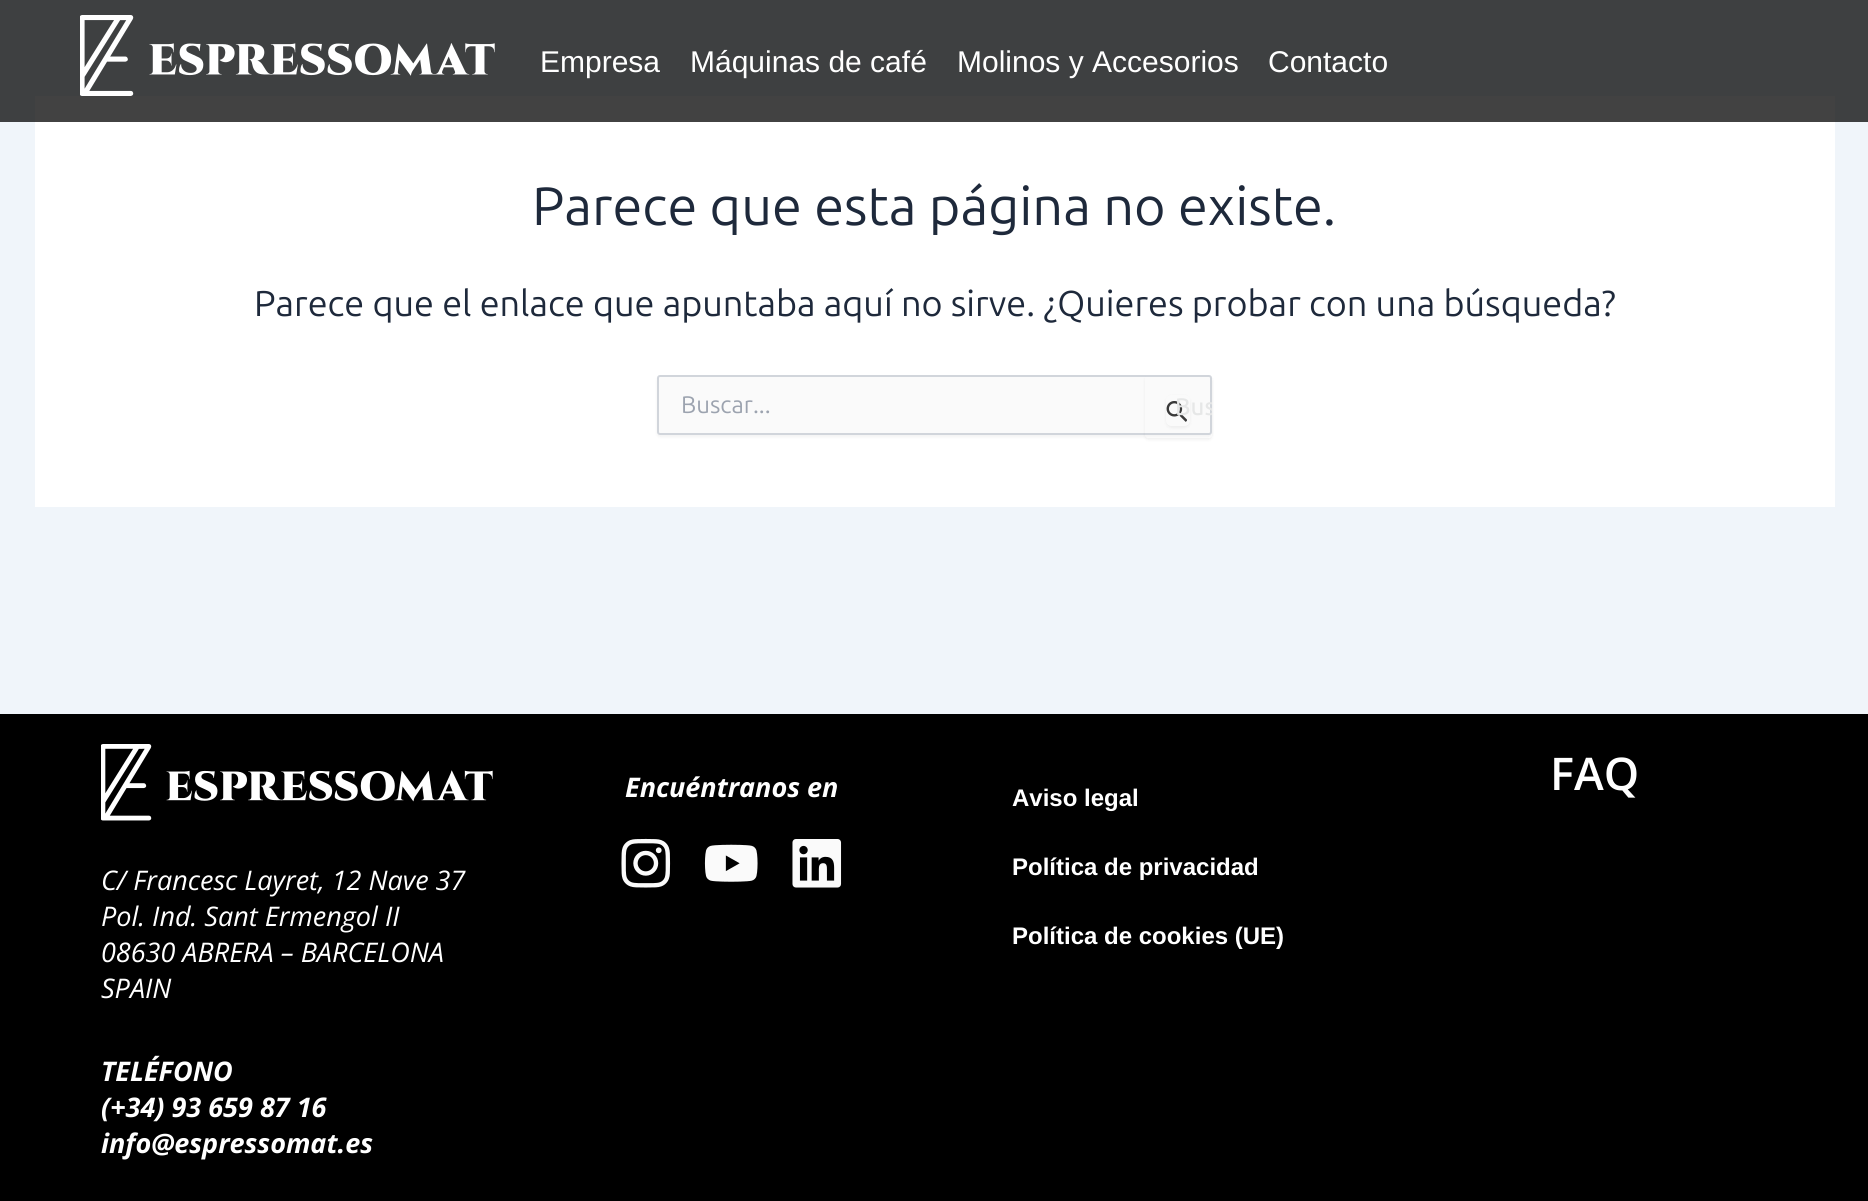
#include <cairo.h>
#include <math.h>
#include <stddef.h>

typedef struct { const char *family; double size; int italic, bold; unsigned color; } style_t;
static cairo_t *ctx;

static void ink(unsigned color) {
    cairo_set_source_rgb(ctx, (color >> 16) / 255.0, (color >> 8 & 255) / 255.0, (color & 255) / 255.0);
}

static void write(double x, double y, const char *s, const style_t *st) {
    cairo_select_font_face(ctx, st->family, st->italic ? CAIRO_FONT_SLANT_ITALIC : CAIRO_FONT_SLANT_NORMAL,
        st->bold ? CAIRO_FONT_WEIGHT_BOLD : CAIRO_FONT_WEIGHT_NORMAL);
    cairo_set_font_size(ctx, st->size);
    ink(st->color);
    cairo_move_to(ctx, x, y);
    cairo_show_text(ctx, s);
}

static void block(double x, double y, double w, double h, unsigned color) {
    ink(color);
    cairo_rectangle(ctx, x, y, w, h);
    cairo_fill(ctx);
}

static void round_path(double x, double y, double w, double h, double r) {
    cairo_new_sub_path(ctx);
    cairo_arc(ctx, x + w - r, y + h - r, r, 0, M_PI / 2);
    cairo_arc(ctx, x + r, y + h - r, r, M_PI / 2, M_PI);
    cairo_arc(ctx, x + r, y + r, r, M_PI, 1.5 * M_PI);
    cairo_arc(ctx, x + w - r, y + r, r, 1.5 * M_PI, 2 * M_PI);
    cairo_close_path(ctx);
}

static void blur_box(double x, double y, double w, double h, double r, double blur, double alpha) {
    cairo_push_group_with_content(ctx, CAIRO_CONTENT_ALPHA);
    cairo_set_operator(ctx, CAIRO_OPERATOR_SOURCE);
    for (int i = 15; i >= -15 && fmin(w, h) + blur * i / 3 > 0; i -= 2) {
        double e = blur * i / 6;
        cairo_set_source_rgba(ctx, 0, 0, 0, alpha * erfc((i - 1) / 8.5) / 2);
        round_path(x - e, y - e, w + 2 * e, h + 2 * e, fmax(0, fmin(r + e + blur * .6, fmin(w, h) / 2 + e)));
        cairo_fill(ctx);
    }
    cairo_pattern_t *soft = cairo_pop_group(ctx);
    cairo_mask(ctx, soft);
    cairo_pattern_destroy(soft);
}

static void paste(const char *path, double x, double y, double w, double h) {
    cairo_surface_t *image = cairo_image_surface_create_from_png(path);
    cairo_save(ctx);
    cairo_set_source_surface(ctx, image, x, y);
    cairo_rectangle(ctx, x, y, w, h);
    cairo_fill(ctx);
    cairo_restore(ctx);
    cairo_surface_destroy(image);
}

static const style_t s1 = {"Liberation Sans", 30, 0, 0, 0xffffff};
static const style_t s2 = {"Ubuntu", 54, 0, 0, 0x1e293b};
static const style_t s3 = {"Ubuntu", 36, 0, 0, 0x1e293b};
static const style_t s4 = {"Ubuntu", 24, 0, 0, 0x9ca3af};
static const style_t s5 = {"Ubuntu Medium", 24, 0, 0, 0xe6e7e7};
static const style_t s6 = {"Open Sans", 27, 1, 0, 0xffffff};
static const style_t s7 = {"Open Sans", 27, 1, 1, 0xffffff};
static const style_t s8 = {"Liberation Sans", 24, 0, 1, 0xffffff};
static const style_t s9 = {"Open Sans SemiBold", 45, 0, 0, 0xffffff};

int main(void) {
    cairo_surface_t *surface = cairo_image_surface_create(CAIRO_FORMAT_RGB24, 1868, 1201);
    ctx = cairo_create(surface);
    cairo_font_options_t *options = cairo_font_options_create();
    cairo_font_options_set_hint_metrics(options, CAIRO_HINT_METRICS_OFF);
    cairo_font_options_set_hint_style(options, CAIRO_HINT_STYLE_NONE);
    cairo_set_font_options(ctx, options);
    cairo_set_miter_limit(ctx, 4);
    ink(0xf0f5fa);
    cairo_paint(ctx);
    block(0, 0, 1868, 122, 0x3e4041);
    paste("pic1.png", 80, 15, 415, 81);
    write(540, 72, "Empresa", &s1);
    write(690, 72, "Máquinas de café", &s1);
    write(957, 72, "Molinos y Accesorios", &s1);
    write(1268, 72, "Contacto", &s1);
    block(35, 122, 1800, 385, 0xffffff);
    block(35, 96, 1800, 26, 0x424242);
    write(532, 225, "Parece que esta página no existe.", &s2);
    write(254, 316, "Parece que el enlace que apuntaba aquí no sirve. ¿Quieres probar con una búsqueda?", &s3);
    ink(0x000000);
    blur_box(657, 377, 555, 60, 3, 1.5, 0.05);
    ink(0xfafafa);
    round_path(658, 376, 553, 58, 2);
    cairo_fill_preserve(ctx);
    ink(0xd1d5db);
    cairo_stroke(ctx);
    write(681, 413, "Buscar...", &s4);
    cairo_save(ctx);
    cairo_set_fill_rule(ctx, CAIRO_FILL_RULE_EVEN_ODD);
    cairo_new_path(ctx);
    cairo_move_to(ctx, 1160, 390);
    cairo_line_to(ctx, 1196, 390);
    cairo_line_to(ctx, 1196, 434);
    cairo_line_to(ctx, 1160, 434);
    cairo_close_path(ctx);
    cairo_move_to(ctx, 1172, 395);
    cairo_line_to(ctx, 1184, 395);
    cairo_curve_to(ctx, 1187.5, 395, 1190, 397.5, 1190, 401);
    cairo_line_to(ctx, 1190, 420);
    cairo_curve_to(ctx, 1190, 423.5, 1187.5, 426, 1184, 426);
    cairo_line_to(ctx, 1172, 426);
    cairo_curve_to(ctx, 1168.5, 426, 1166, 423.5, 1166, 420);
    cairo_line_to(ctx, 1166, 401);
    cairo_curve_to(ctx, 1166, 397.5, 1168.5, 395, 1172, 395);
    cairo_close_path(ctx);
    cairo_clip(ctx);
    ink(0x000000);
    blur_box(1166, 396, 24, 32, 6, 1.5, 0.05);
    cairo_restore(ctx);
    paste("pic2.png", 1166, 401, 21, 21);
    cairo_save(ctx);
    cairo_set_fill_rule(ctx, CAIRO_FILL_RULE_EVEN_ODD);
    cairo_new_path(ctx);
    cairo_move_to(ctx, 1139, 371);
    cairo_line_to(ctx, 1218, 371);
    cairo_line_to(ctx, 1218, 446);
    cairo_line_to(ctx, 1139, 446);
    cairo_close_path(ctx);
    cairo_move_to(ctx, 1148, 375);
    cairo_line_to(ctx, 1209, 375);
    cairo_curve_to(ctx, 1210.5, 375, 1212, 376.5, 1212, 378);
    cairo_line_to(ctx, 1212, 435);
    cairo_curve_to(ctx, 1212, 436.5, 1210.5, 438, 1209, 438);
    cairo_line_to(ctx, 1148, 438);
    cairo_curve_to(ctx, 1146.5, 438, 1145, 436.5, 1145, 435);
    cairo_line_to(ctx, 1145, 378);
    cairo_curve_to(ctx, 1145, 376.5, 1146.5, 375, 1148, 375);
    cairo_close_path(ctx);
    cairo_clip(ctx);
    ink(0x000000);
    blur_box(1145, 377, 67, 63, 3, 1.5, 0.05);
    cairo_restore(ctx);
    cairo_save(ctx);
    round_path(1145, 375, 67, 63, 3);
    cairo_clip(ctx);
    write(1175, 415, "Bus", &s5);
    cairo_restore(ctx);
    block(0, 714, 1868, 487, 0x000000);
    paste("pic3.png", 101, 744, 392, 77);
    write(101, 890, "C/ Francesc Layret, 12 Nave 37", &s6);
    write(101, 926, "Pol. Ind. Sant Ermengol II", &s6);
    write(101, 962, "08630 ABRERA – BARCELONA", &s6);
    write(101, 998, "SPAIN", &s6);
    write(101, 1081, "TELÉFONO", &s7);
    write(101, 1117, "(+34) 93 659 87 16", &s7);
    write(101, 1153, "info@espressomat.es", &s7);
    write(625, 797, "Encuéntranos en", &s7);
    paste("pic4.png", 621, 838, 50, 50);
    paste("pic5.png", 704, 844, 54, 38);
    paste("pic6.png", 792, 839, 50, 49);
    write(1012, 806, "Aviso legal", &s8);
    write(1012, 875, "Política de privacidad", &s8);
    write(1012, 944, "Política de cookies (UE)", &s8);
    write(1550, 790, "FAQ", &s9);
    cairo_surface_write_to_png(surface, "screenshot.png");
    cairo_font_options_destroy(options);
    cairo_destroy(ctx);
    cairo_surface_destroy(surface);
    return 0;
}
